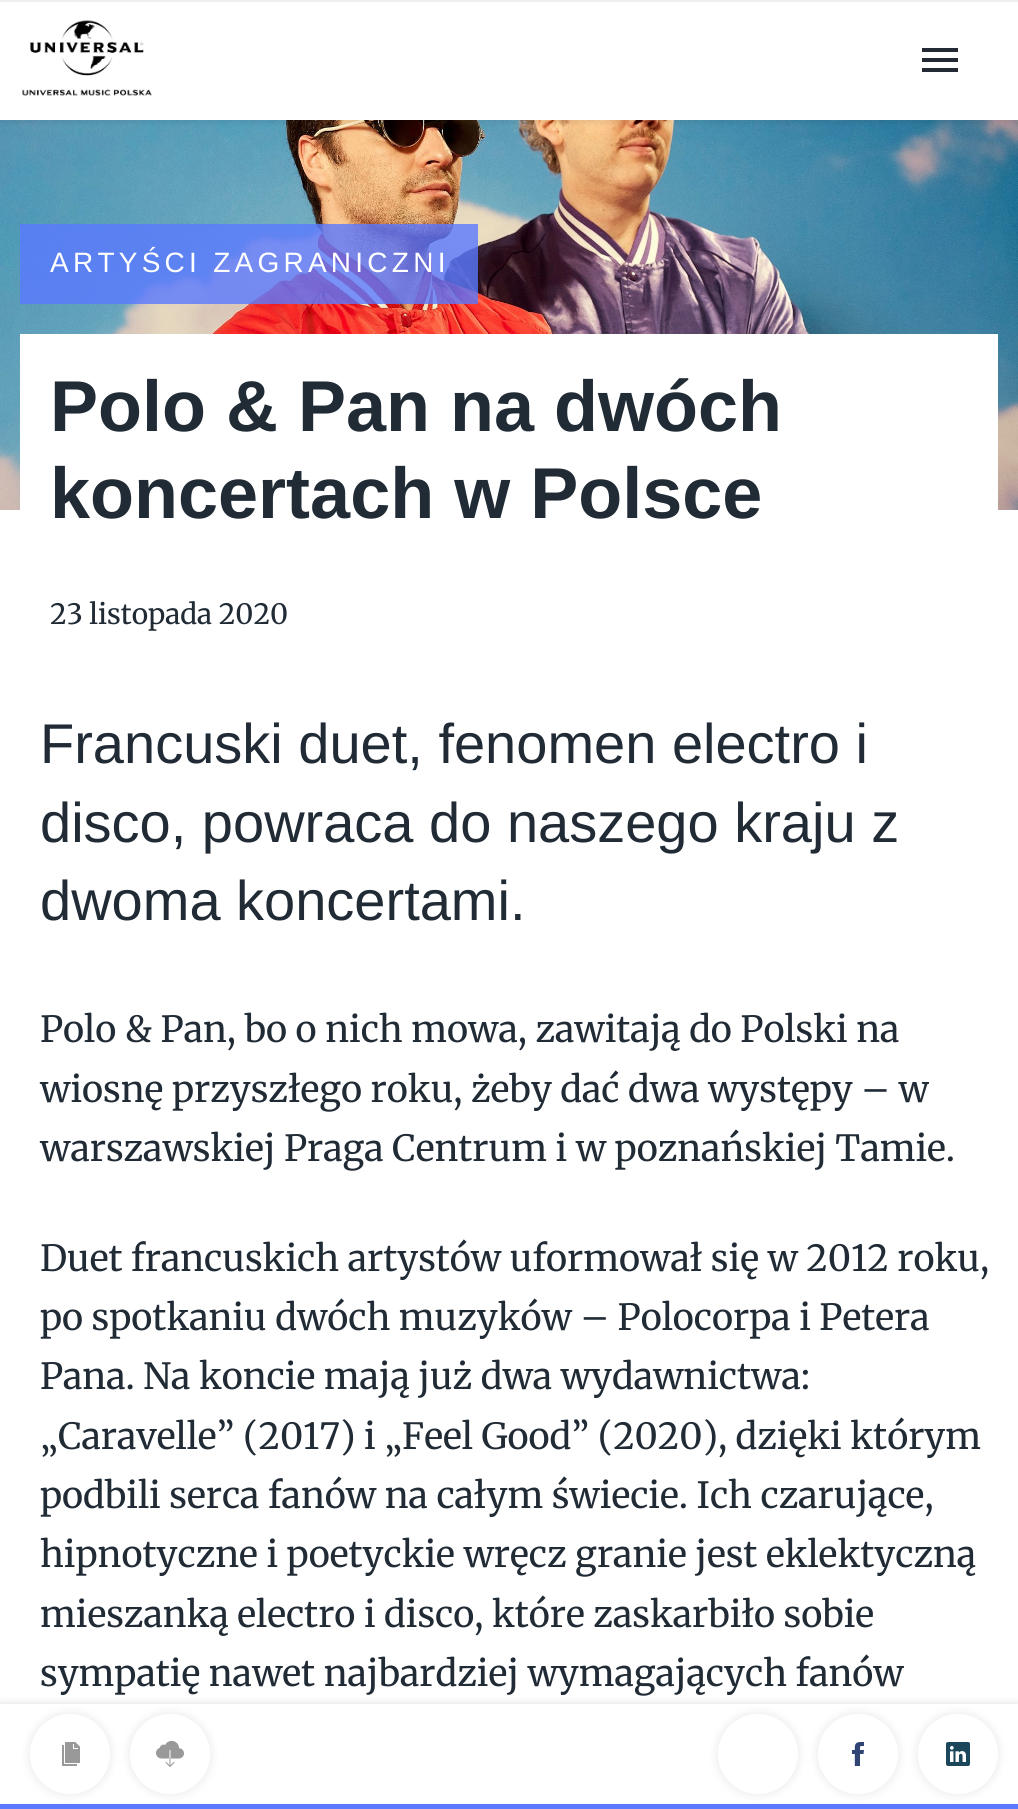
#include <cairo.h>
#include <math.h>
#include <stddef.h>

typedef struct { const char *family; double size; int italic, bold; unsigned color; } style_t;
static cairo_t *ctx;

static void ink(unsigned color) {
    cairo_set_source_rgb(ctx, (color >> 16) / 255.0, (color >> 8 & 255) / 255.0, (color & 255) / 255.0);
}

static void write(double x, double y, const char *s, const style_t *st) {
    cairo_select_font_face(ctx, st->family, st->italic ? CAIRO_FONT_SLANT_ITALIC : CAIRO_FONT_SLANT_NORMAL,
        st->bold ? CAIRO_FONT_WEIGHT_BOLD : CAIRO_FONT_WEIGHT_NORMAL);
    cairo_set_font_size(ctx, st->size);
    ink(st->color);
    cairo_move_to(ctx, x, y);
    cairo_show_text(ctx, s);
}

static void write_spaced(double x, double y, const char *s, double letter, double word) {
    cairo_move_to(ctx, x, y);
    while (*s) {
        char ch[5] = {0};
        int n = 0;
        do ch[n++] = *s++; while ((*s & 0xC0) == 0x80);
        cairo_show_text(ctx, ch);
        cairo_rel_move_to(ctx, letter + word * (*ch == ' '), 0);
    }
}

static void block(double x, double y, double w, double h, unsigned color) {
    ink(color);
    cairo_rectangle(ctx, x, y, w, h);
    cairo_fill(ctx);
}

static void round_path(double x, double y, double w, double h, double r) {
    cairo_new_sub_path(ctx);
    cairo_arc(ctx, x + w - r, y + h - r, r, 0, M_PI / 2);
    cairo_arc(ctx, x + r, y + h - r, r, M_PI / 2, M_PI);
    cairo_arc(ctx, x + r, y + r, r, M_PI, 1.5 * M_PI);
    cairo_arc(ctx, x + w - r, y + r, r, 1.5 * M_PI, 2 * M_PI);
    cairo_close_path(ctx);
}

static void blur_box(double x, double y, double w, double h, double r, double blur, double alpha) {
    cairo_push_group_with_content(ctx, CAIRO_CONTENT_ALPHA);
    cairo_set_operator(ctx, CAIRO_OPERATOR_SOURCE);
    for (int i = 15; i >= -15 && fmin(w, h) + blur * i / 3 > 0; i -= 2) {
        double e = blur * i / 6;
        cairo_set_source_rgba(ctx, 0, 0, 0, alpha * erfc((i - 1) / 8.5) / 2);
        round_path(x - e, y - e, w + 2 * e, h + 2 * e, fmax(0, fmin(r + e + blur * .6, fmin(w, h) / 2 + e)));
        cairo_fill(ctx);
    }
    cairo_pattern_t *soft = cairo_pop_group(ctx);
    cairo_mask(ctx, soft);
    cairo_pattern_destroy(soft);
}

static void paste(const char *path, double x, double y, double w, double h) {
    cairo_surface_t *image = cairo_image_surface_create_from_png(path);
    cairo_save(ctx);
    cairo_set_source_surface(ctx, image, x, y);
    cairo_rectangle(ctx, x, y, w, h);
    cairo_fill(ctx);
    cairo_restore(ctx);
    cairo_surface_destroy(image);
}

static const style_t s1 = {"Liberation Sans", 72, 0, 1, 0x212b35};
static const style_t s2 = {"Merriweather", 28, 0, 0, 0x212b35};
static const style_t s3 = {"Liberation Sans", 56, 0, 0, 0x212b35};
static const style_t s4 = {"Merriweather", 36, 0, 0, 0x212b35};

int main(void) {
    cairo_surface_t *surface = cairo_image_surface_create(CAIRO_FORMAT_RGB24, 1018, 1809);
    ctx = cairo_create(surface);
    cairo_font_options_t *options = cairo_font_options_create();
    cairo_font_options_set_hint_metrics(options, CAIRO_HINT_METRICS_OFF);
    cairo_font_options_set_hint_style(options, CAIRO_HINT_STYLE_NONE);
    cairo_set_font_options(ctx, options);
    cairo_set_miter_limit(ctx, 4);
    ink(0xffffff);
    cairo_paint(ctx);
    paste("pic2.png", 0, 120, 1018, 390);
    ink(0x000000);
    blur_box(0, 4, 1018, 120, 0, 2, 0.06);
    block(0, 2, 1018, 118, 0xffffff);
    block(0, 0, 1018, 2, 0xefefef);
    paste("pic1.png", 22, 20, 130, 76);
    ink(0x242a33);
    cairo_new_path(ctx);
    cairo_move_to(ctx, 922, 72);
    cairo_line_to(ctx, 922, 68);
    cairo_line_to(ctx, 958, 68);
    cairo_line_to(ctx, 958, 72);
    cairo_close_path(ctx);
    cairo_move_to(ctx, 922, 62);
    cairo_line_to(ctx, 922, 58);
    cairo_line_to(ctx, 958, 58);
    cairo_line_to(ctx, 958, 62);
    cairo_close_path(ctx);
    cairo_move_to(ctx, 922, 48);
    cairo_line_to(ctx, 958, 48);
    cairo_line_to(ctx, 958, 52);
    cairo_line_to(ctx, 922, 52);
    cairo_close_path(ctx);
    cairo_fill(ctx);
    cairo_set_source_rgba(ctx, 0.353, 0.475, 1, 0.8);
    cairo_rectangle(ctx, 20, 224, 458, 80);
    cairo_fill(ctx);
    cairo_select_font_face(ctx, "Liberation Sans", CAIRO_FONT_SLANT_NORMAL, CAIRO_FONT_WEIGHT_NORMAL);
    cairo_set_font_size(ctx, 28);
    ink(0xffffff);
    write_spaced(50, 272, "ARTYŚCI ZAGRANICZNI", 4.25, 0);
    block(20, 334, 978, 176, 0xffffff);
    write(50, 431, "Polo & Pan na dwóch", &s1);
    write(50, 518, "koncertach w Polsce", &s1);
    write(50, 624, "23 listopada 2020", &s2);
    write(40, 763, "Francuski duet, fenomen electro i", &s3);
    write(40, 842, "disco, powraca do naszego kraju z", &s3);
    write(40, 920, "dwoma koncertami.", &s3);
    write(40, 1042, "Polo & Pan, bo o nich mowa, zawitają do Polski na", &s4);
    write(40, 1102, "wiosnę przyszłego roku, żeby dać dwa występy – w", &s4);
    write(40, 1161, "warszawskiej Praga Centrum i w poznańskiej Tamie.", &s4);
    write(40, 1271, "Duet francuskich artystów uformował się w 2012 roku,", &s4);
    write(40, 1330, "po spotkaniu dwóch muzyków – Polocorpa i Petera", &s4);
    write(40, 1389, "Pana. Na koncie mają już dwa wydawnictwa:", &s4);
    write(40, 1449, "„Caravelle” (2017) i „Feel Good” (2020), dzięki którym", &s4);
    write(40, 1508, "podbili serca fanów na całym świecie. Ich czarujące,", &s4);
    write(40, 1567, "hipnotyczne i poetyckie wręcz granie jest eklektyczną", &s4);
    write(40, 1627, "mieszanką electro i disco, które zaskarbiło sobie", &s4);
    write(40, 1686, "sympatię nawet najbardziej wymagających fanów", &s4);
    ink(0xdbdbdb);
    blur_box(0, 1704, 1018, 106, 0, 4, 1);
    block(0, 1704, 1018, 100, 0xffffff);
    block(0, 1804, 1018, 5, 0x5a79ff);
    cairo_save(ctx);
    cairo_set_fill_rule(ctx, CAIRO_FILL_RULE_EVEN_ODD);
    cairo_new_path(ctx);
    cairo_move_to(ctx, 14, 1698);
    cairo_line_to(ctx, 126, 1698);
    cairo_line_to(ctx, 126, 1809);
    cairo_line_to(ctx, 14, 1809);
    cairo_close_path(ctx);
    cairo_move_to(ctx, 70, 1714);
    cairo_curve_to(ctx, 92, 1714, 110, 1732, 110, 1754);
    cairo_curve_to(ctx, 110, 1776, 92, 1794, 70, 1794);
    cairo_curve_to(ctx, 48, 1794, 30, 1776, 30, 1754);
    cairo_curve_to(ctx, 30, 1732, 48, 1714, 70, 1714);
    cairo_close_path(ctx);
    cairo_clip(ctx);
    ink(0x000000);
    blur_box(30, 1714, 80, 80, 40, 5, 0.1);
    cairo_restore(ctx);
    paste("pic3.png", 62, 1742, 18, 24);
    cairo_save(ctx);
    cairo_set_fill_rule(ctx, CAIRO_FILL_RULE_EVEN_ODD);
    cairo_new_path(ctx);
    cairo_move_to(ctx, 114, 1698);
    cairo_line_to(ctx, 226, 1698);
    cairo_line_to(ctx, 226, 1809);
    cairo_line_to(ctx, 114, 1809);
    cairo_close_path(ctx);
    cairo_move_to(ctx, 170, 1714);
    cairo_curve_to(ctx, 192, 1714, 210, 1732, 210, 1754);
    cairo_curve_to(ctx, 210, 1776, 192, 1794, 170, 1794);
    cairo_curve_to(ctx, 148, 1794, 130, 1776, 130, 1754);
    cairo_curve_to(ctx, 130, 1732, 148, 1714, 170, 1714);
    cairo_close_path(ctx);
    cairo_clip(ctx);
    ink(0x000000);
    blur_box(130, 1714, 80, 80, 40, 5, 0.1);
    cairo_restore(ctx);
    paste("pic4.png", 156, 1740, 28, 27);
    cairo_save(ctx);
    cairo_set_fill_rule(ctx, CAIRO_FILL_RULE_EVEN_ODD);
    cairo_new_path(ctx);
    cairo_move_to(ctx, 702, 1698);
    cairo_line_to(ctx, 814, 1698);
    cairo_line_to(ctx, 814, 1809);
    cairo_line_to(ctx, 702, 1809);
    cairo_close_path(ctx);
    cairo_move_to(ctx, 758, 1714);
    cairo_curve_to(ctx, 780, 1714, 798, 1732, 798, 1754);
    cairo_curve_to(ctx, 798, 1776, 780, 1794, 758, 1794);
    cairo_curve_to(ctx, 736, 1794, 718, 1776, 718, 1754);
    cairo_curve_to(ctx, 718, 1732, 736, 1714, 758, 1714);
    cairo_close_path(ctx);
    cairo_clip(ctx);
    ink(0x000000);
    blur_box(718, 1714, 80, 80, 40, 5, 0.1);
    cairo_restore(ctx);
    cairo_save(ctx);
    cairo_set_fill_rule(ctx, CAIRO_FILL_RULE_EVEN_ODD);
    cairo_new_path(ctx);
    cairo_move_to(ctx, 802, 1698);
    cairo_line_to(ctx, 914, 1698);
    cairo_line_to(ctx, 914, 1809);
    cairo_line_to(ctx, 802, 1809);
    cairo_close_path(ctx);
    cairo_move_to(ctx, 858, 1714);
    cairo_curve_to(ctx, 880, 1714, 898, 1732, 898, 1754);
    cairo_curve_to(ctx, 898, 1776, 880, 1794, 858, 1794);
    cairo_curve_to(ctx, 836, 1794, 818, 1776, 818, 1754);
    cairo_curve_to(ctx, 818, 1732, 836, 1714, 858, 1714);
    cairo_close_path(ctx);
    cairo_clip(ctx);
    ink(0x000000);
    blur_box(818, 1714, 80, 80, 40, 5, 0.1);
    cairo_restore(ctx);
    paste("pic5.png", 852, 1742, 12, 24);
    cairo_save(ctx);
    cairo_set_fill_rule(ctx, CAIRO_FILL_RULE_EVEN_ODD);
    cairo_new_path(ctx);
    cairo_move_to(ctx, 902, 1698);
    cairo_line_to(ctx, 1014, 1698);
    cairo_line_to(ctx, 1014, 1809);
    cairo_line_to(ctx, 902, 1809);
    cairo_close_path(ctx);
    cairo_move_to(ctx, 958, 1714);
    cairo_curve_to(ctx, 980, 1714, 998, 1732, 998, 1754);
    cairo_curve_to(ctx, 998, 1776, 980, 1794, 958, 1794);
    cairo_curve_to(ctx, 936, 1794, 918, 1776, 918, 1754);
    cairo_curve_to(ctx, 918, 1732, 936, 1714, 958, 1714);
    cairo_close_path(ctx);
    cairo_clip(ctx);
    ink(0x000000);
    blur_box(918, 1714, 80, 80, 40, 5, 0.1);
    cairo_restore(ctx);
    paste("pic6.png", 946, 1742, 24, 24);
    cairo_surface_write_to_png(surface, "screenshot.png");
    cairo_font_options_destroy(options);
    cairo_destroy(ctx);
    cairo_surface_destroy(surface);
    return 0;
}
